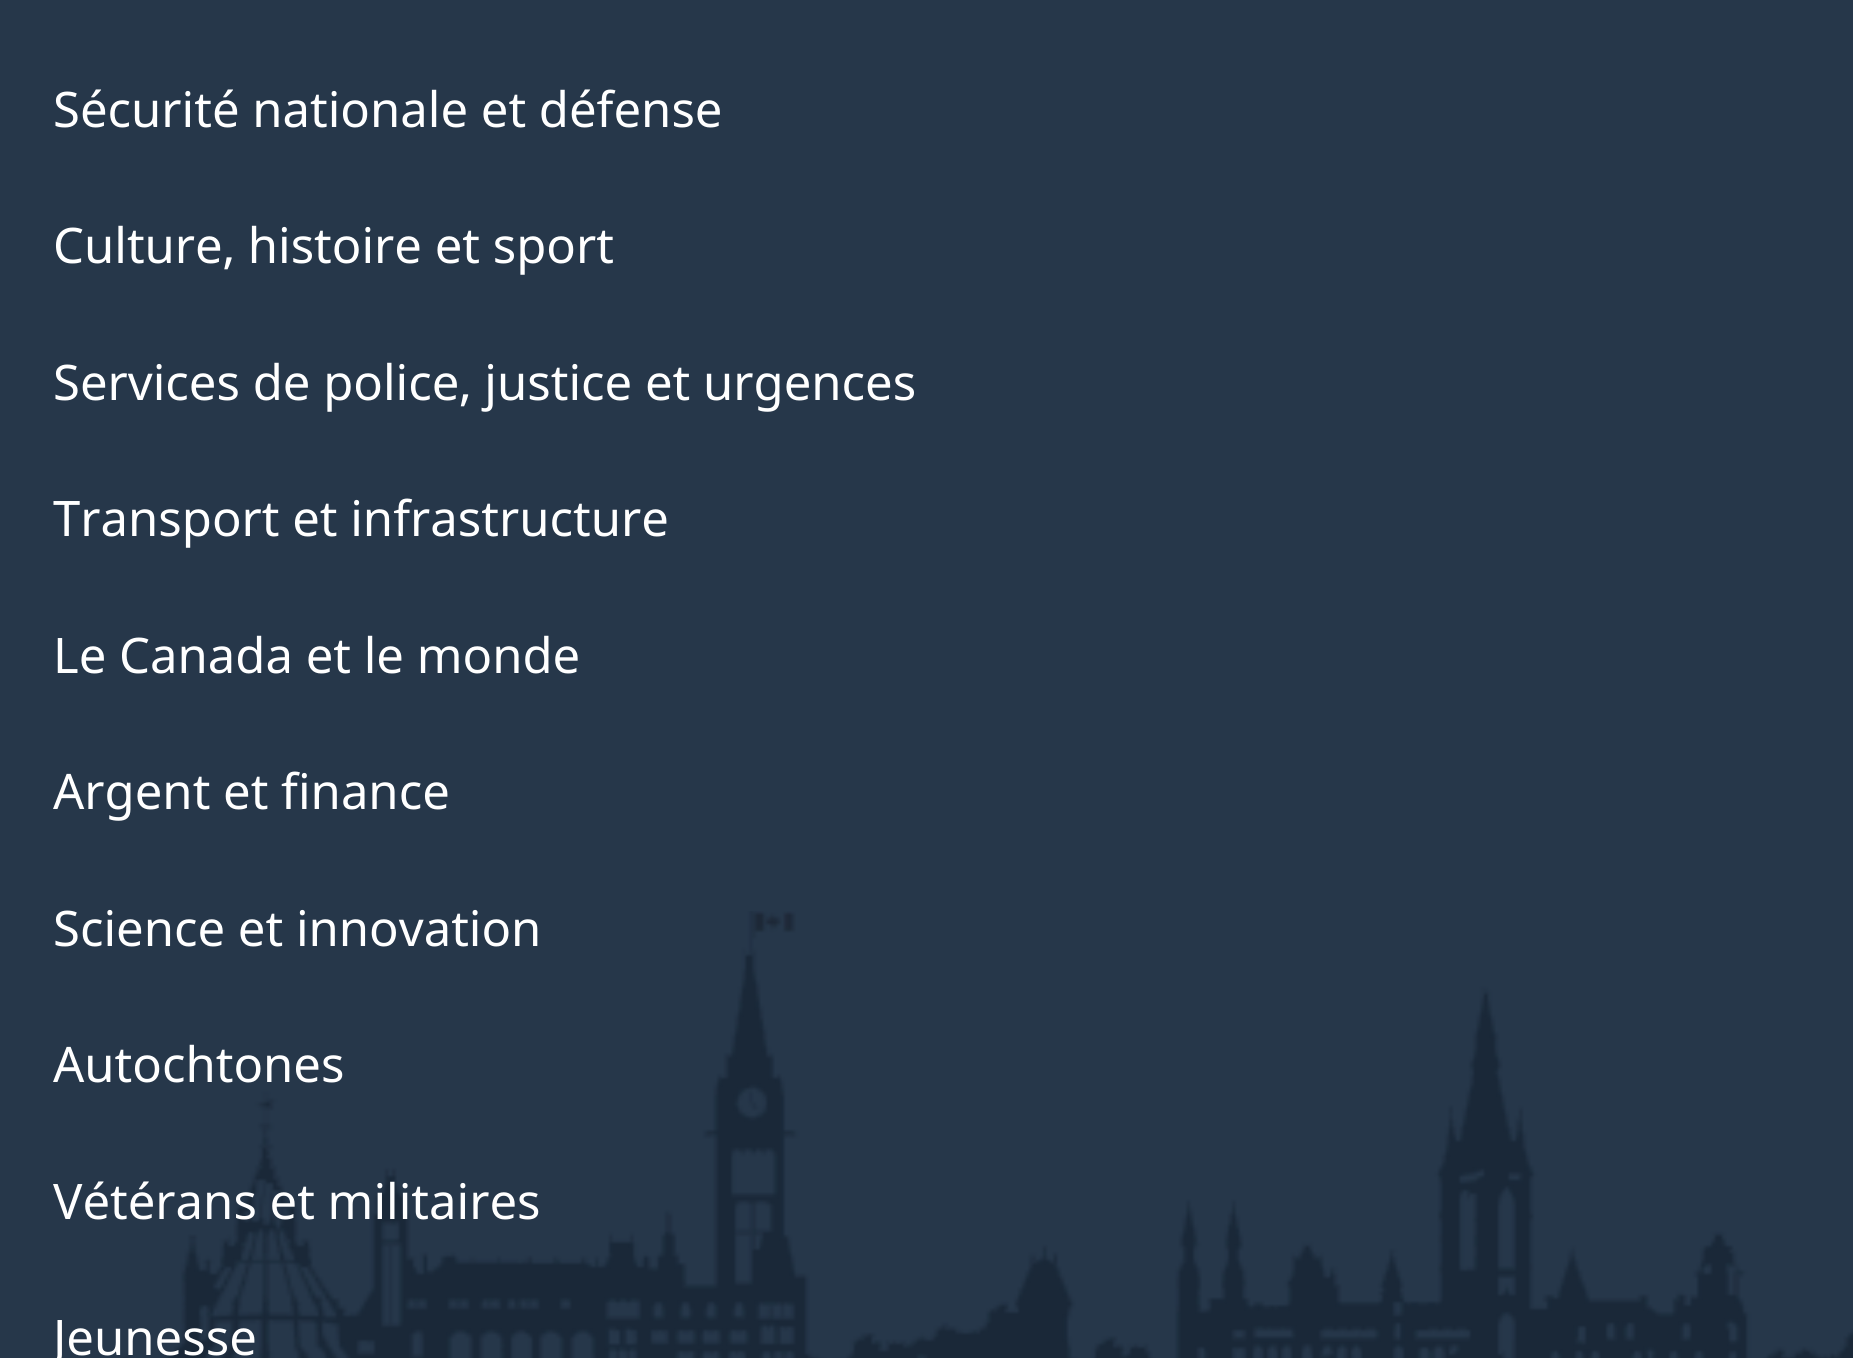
#include <cairo.h>
#include <math.h>
#include <stddef.h>

typedef struct { const char *family; double size; int italic, bold; unsigned color; } style_t;
static cairo_t *ctx;

static void ink(unsigned color) {
    cairo_set_source_rgb(ctx, (color >> 16) / 255.0, (color >> 8 & 255) / 255.0, (color & 255) / 255.0);
}

static void write(double x, double y, const char *s, const style_t *st) {
    cairo_select_font_face(ctx, st->family, st->italic ? CAIRO_FONT_SLANT_ITALIC : CAIRO_FONT_SLANT_NORMAL,
        st->bold ? CAIRO_FONT_WEIGHT_BOLD : CAIRO_FONT_WEIGHT_NORMAL);
    cairo_set_font_size(ctx, st->size);
    ink(st->color);
    cairo_move_to(ctx, x, y);
    cairo_show_text(ctx, s);
}

static void paste(const char *path, double x, double y, double w, double h) {
    cairo_surface_t *image = cairo_image_surface_create_from_png(path);
    cairo_save(ctx);
    cairo_set_source_surface(ctx, image, x, y);
    cairo_rectangle(ctx, x, y, w, h);
    cairo_fill(ctx);
    cairo_restore(ctx);
    cairo_surface_destroy(image);
}

static const style_t s1 = {"Noto Sans", 49, 0, 0, 0xffffff};

int main(void) {
    cairo_surface_t *surface = cairo_image_surface_create(CAIRO_FORMAT_RGB24, 1853, 1358);
    ctx = cairo_create(surface);
    cairo_font_options_t *options = cairo_font_options_create();
    cairo_font_options_set_hint_metrics(options, CAIRO_HINT_METRICS_OFF);
    cairo_font_options_set_hint_style(options, CAIRO_HINT_STYLE_NONE);
    cairo_set_font_options(ctx, options);
    cairo_set_miter_limit(ctx, 4);
    ink(0x26374a);
    cairo_paint(ctx);
    paste("pic1.png", 120, 911, 1733, 447);
    write(53, 127, "Sécurité nationale et défense", &s1);
    write(53, 263, "Culture, histoire et sport", &s1);
    write(53, 400, "Services de police, justice et urgences", &s1);
    write(53, 536, "Transport et infrastructure", &s1);
    write(53, 673, "Le Canada et le monde", &s1);
    write(53, 809, "Argent et finance", &s1);
    write(53, 946, "Science et innovation", &s1);
    write(53, 1082, "Autochtones", &s1);
    write(53, 1219, "Vétérans et militaires", &s1);
    write(53, 1355, "Jeunesse", &s1);
    cairo_surface_write_to_png(surface, "screenshot.png");
    cairo_font_options_destroy(options);
    cairo_destroy(ctx);
    cairo_surface_destroy(surface);
    return 0;
}
